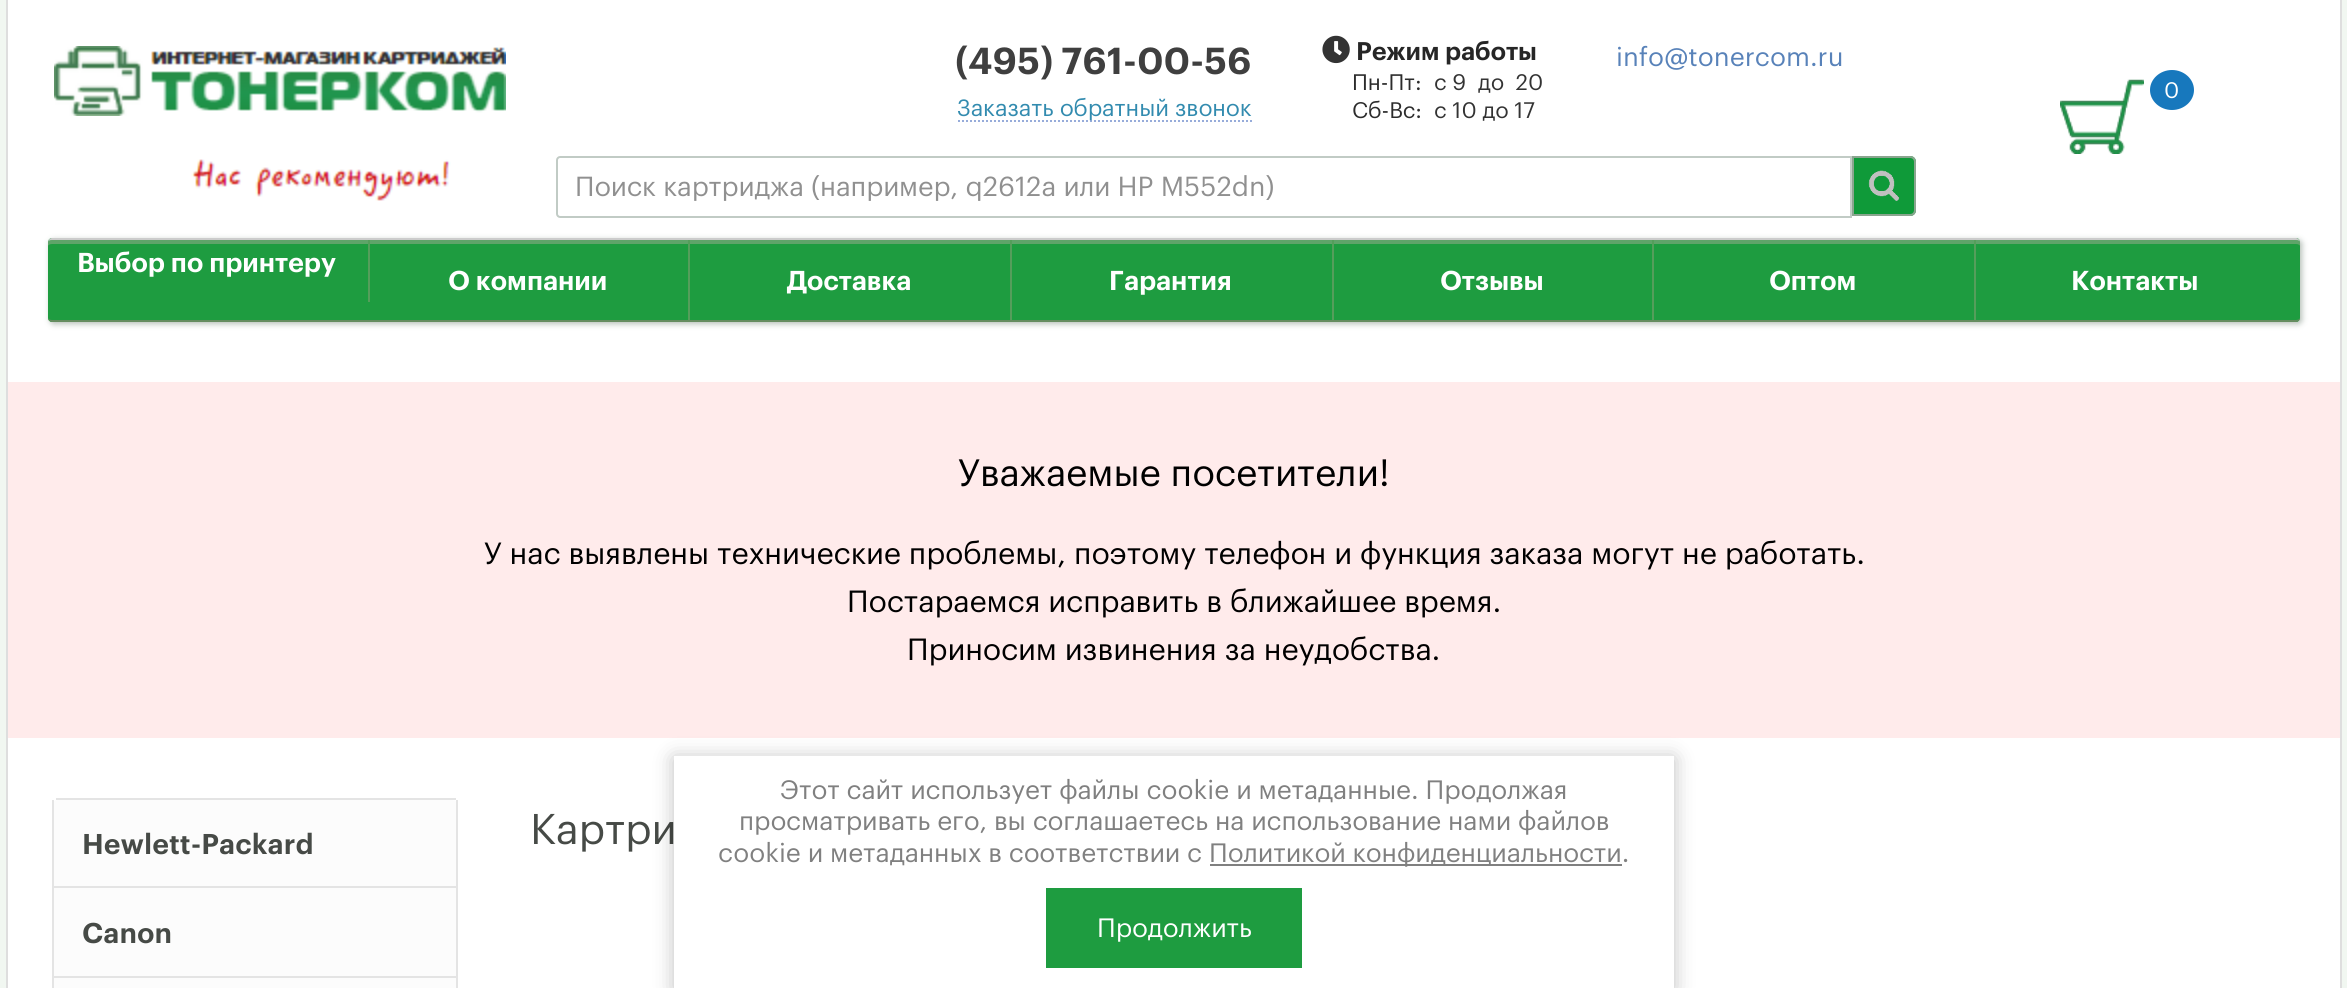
#include <cairo.h>
#include <math.h>
#include <stddef.h>

typedef struct { const char *family; double size; int italic, bold; unsigned color; } style_t;
static cairo_t *ctx;

static void ink(unsigned color) {
    cairo_set_source_rgb(ctx, (color >> 16) / 255.0, (color >> 8 & 255) / 255.0, (color & 255) / 255.0);
}

static void write(double x, double y, const char *s, const style_t *st) {
    cairo_select_font_face(ctx, st->family, st->italic ? CAIRO_FONT_SLANT_ITALIC : CAIRO_FONT_SLANT_NORMAL,
        st->bold ? CAIRO_FONT_WEIGHT_BOLD : CAIRO_FONT_WEIGHT_NORMAL);
    cairo_set_font_size(ctx, st->size);
    ink(st->color);
    cairo_move_to(ctx, x, y);
    cairo_show_text(ctx, s);
}

static void block(double x, double y, double w, double h, unsigned color) {
    ink(color);
    cairo_rectangle(ctx, x, y, w, h);
    cairo_fill(ctx);
}

static void round_path(double x, double y, double w, double h, double r) {
    cairo_new_sub_path(ctx);
    cairo_arc(ctx, x + w - r, y + h - r, r, 0, M_PI / 2);
    cairo_arc(ctx, x + r, y + h - r, r, M_PI / 2, M_PI);
    cairo_arc(ctx, x + r, y + r, r, M_PI, 1.5 * M_PI);
    cairo_arc(ctx, x + w - r, y + r, r, 1.5 * M_PI, 2 * M_PI);
    cairo_close_path(ctx);
}

static void blur_box(double x, double y, double w, double h, double r, double blur, double alpha) {
    cairo_push_group_with_content(ctx, CAIRO_CONTENT_ALPHA);
    cairo_set_operator(ctx, CAIRO_OPERATOR_SOURCE);
    for (int i = 15; i >= -15 && fmin(w, h) + blur * i / 3 > 0; i -= 2) {
        double e = blur * i / 6;
        cairo_set_source_rgba(ctx, 0, 0, 0, alpha * erfc((i - 1) / 8.5) / 2);
        round_path(x - e, y - e, w + 2 * e, h + 2 * e, fmax(0, fmin(r + e + blur * .6, fmin(w, h) / 2 + e)));
        cairo_fill(ctx);
    }
    cairo_pattern_t *soft = cairo_pop_group(ctx);
    cairo_mask(ctx, soft);
    cairo_pattern_destroy(soft);
}

static void paste(const char *path, double x, double y, double w, double h) {
    cairo_surface_t *image = cairo_image_surface_create_from_png(path);
    cairo_save(ctx);
    cairo_set_source_surface(ctx, image, x, y);
    cairo_rectangle(ctx, x, y, w, h);
    cairo_fill(ctx);
    cairo_restore(ctx);
    cairo_surface_destroy(image);
}

static const style_t s1 = {"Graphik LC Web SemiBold", 36.75, 0, 0, 0x3f3f3f};
static const style_t s2 = {"Graphik LC Web", 23, 0, 0, 0x328baf};
static const style_t s3 = {"Graphik LC Web SemiBold", 25, 0, 0, 0x262626};
static const style_t s4 = {"Graphik LC Web", 22, 0, 0, 0x2c2c2c};
static const style_t s5 = {"Graphik LC Web", 22, 0, 0, 0x333333};
static const style_t s6 = {"Graphik LC Web", 26, 0, 0, 0x5882b9};
static const style_t s7 = {"Graphik LC Web", 22, 0, 0, 0xffffff};
static const style_t s8 = {"Graphik LC Web", 27, 0, 0, 0x909090};
static const style_t s9 = {"Graphik LC Web SemiBold", 26.75, 0, 0, 0xffffff};
static const style_t s10 = {"Graphik LC Web", 37.25, 0, 0, 0x000000};
static const style_t s11 = {"Graphik LC Web", 30, 0, 0, 0x000000};
static const style_t s12 = {"Graphik LC Web SemiBold", 28, 0, 0, 0x464a46};
static const style_t s13 = {"Graphik LC Web", 42, 0, 0, 0x464a46};
static const style_t s14 = {"Graphik LC Web", 26, 0, 0, 0x808080};
static const style_t s15 = {"Graphik LC Web", 26, 0, 0, 0xffffff};

int main(void) {
    cairo_surface_t *surface = cairo_image_surface_create(CAIRO_FORMAT_RGB24, 2347, 988);
    ctx = cairo_create(surface);
    cairo_font_options_t *options = cairo_font_options_create();
    cairo_font_options_set_hint_metrics(options, CAIRO_HINT_METRICS_OFF);
    cairo_font_options_set_hint_style(options, CAIRO_HINT_STYLE_NONE);
    cairo_set_font_options(ctx, options);
    cairo_set_miter_limit(ctx, 4);
    ink(0xf1f7f1);
    cairo_paint(ctx);
    block(8, 0, 2332, 988, 0xffffff);
    block(2340, 0, 2, 988, 0xdedede);
    block(6, 0, 2, 988, 0xdedede);
    paste("pic1.png", 54, 46, 452, 70);
    write(955, 74, "(495) 761-00-56", &s1);
    cairo_new_path(ctx);
    cairo_move_to(ctx, 958, 121);
    cairo_line_to(ctx, 1252, 121);
    ink(0x97acda);
    cairo_set_dash(ctx, (double[]){2, 2}, 2, 0);
    cairo_stroke(ctx);
    write(957, 116, "Заказать обратный звонок", &s2);
    paste("pic2.png", 1322, 35, 28, 29);
    write(1356, 60, "Режим работы", &s3);
    write(1352, 90, "Пн-Пт:", &s4);
    write(1434, 90, "с 9  до  20", &s5);
    write(1352, 118, "Сб-Вс:", &s4);
    write(1434, 118, "с 10 до 17", &s5);
    write(1616, 66, "info@tonercom.ru", &s6);
    paste("pic3.png", 2060, 79, 84, 75);
    ink(0x1778bd);
    cairo_new_path(ctx);
    cairo_move_to(ctx, 2172, 70);
    cairo_curve_to(ctx, 2184, 70, 2194, 79, 2194, 90);
    cairo_curve_to(ctx, 2194, 101, 2184, 110, 2172, 110);
    cairo_curve_to(ctx, 2160, 110, 2150, 101, 2150, 90);
    cairo_curve_to(ctx, 2150, 79, 2160, 70, 2172, 70);
    cairo_close_path(ctx);
    cairo_fill(ctx);
    write(2164, 98, "0", &s7);
    paste("pic4.png", 191, 159, 260, 42);
    cairo_new_path(ctx);
    cairo_move_to(ctx, 560, 157);
    cairo_line_to(ctx, 1851, 157);
    cairo_line_to(ctx, 1851, 217);
    cairo_line_to(ctx, 560, 217);
    cairo_curve_to(ctx, 558.5, 217, 557, 215.5, 557, 214);
    cairo_line_to(ctx, 557, 160);
    cairo_curve_to(ctx, 557, 158.5, 558.5, 157, 560, 157);
    cairo_close_path(ctx);
    ink(0xc1cbc5);
    cairo_set_dash(ctx, NULL, 0, 0);
    cairo_stroke(ctx);
    write(575, 196, "Поиск картриджа (например, q2612a или HP M552dn)", &s8);
    ink(0x0f9a39);
    cairo_new_path(ctx);
    cairo_move_to(ctx, 1852, 156);
    cairo_line_to(ctx, 1910, 156);
    cairo_curve_to(ctx, 1913.5, 156, 1916, 158.5, 1916, 162);
    cairo_line_to(ctx, 1916, 210);
    cairo_curve_to(ctx, 1916, 213.5, 1913.5, 216, 1910, 216);
    cairo_line_to(ctx, 1852, 216);
    cairo_close_path(ctx);
    cairo_fill(ctx);
    paste("pic5.png", 1868, 170, 32, 31);
    cairo_new_path(ctx);
    cairo_move_to(ctx, 1853, 157);
    cairo_line_to(ctx, 1910, 157);
    cairo_curve_to(ctx, 1913, 157, 1915, 159, 1915, 162);
    cairo_line_to(ctx, 1915, 210);
    cairo_curve_to(ctx, 1915, 213, 1913, 215, 1910, 215);
    cairo_line_to(ctx, 1853, 215);
    cairo_close_path(ctx);
    ink(0x8aa58f);
    cairo_stroke(ctx);
    ink(0xacb7ae);
    blur_box(50, 240, 2252, 84, 4, 3, 0.89);
    ink(0x1e9c40);
    round_path(48, 238, 2252, 84, 4);
    cairo_fill(ctx);
    cairo_set_source_rgba(ctx, 0.408, 0.647, 0.431, 0.89);
    cairo_new_path(ctx);
    cairo_move_to(ctx, 52, 244);
    cairo_line_to(ctx, 2296, 244);
    cairo_curve_to(ctx, 2298, 244, 2300, 245, 2300, 246);
    cairo_line_to(ctx, 2300, 242);
    cairo_curve_to(ctx, 2300, 241, 2298, 240, 2296, 240);
    cairo_line_to(ctx, 52, 240);
    cairo_curve_to(ctx, 50, 240, 48, 241, 48, 242);
    cairo_line_to(ctx, 48, 246);
    cairo_curve_to(ctx, 48, 245, 50, 244, 52, 244);
    cairo_close_path(ctx);
    cairo_fill(ctx);
    ink(0xcccccc);
    cairo_new_path(ctx);
    cairo_move_to(ctx, 52, 238);
    cairo_curve_to(ctx, 50, 238, 48, 240, 48, 242);
    cairo_curve_to(ctx, 48, 241, 50, 240, 52, 240);
    cairo_line_to(ctx, 2296, 240);
    cairo_curve_to(ctx, 2298, 240, 2300, 241, 2300, 242);
    cairo_curve_to(ctx, 2300, 240, 2298, 238, 2296, 238);
    cairo_close_path(ctx);
    cairo_fill(ctx);
    ink(0x658c5f);
    cairo_new_path(ctx);
    cairo_move_to(ctx, 2296, 322);
    cairo_curve_to(ctx, 2298, 322, 2300, 320, 2300, 318);
    cairo_curve_to(ctx, 2300, 319, 2298, 320, 2296, 320);
    cairo_line_to(ctx, 52, 320);
    cairo_curve_to(ctx, 50, 320, 48, 319, 48, 318);
    cairo_curve_to(ctx, 48, 320, 50, 322, 52, 322);
    cairo_close_path(ctx);
    cairo_fill(ctx);
    block(368, 240, 2, 62, 0x559e5b);
    write(77, 272, "Выбор по принтеру", &s9);
    block(688, 240, 2, 80, 0x559e5b);
    write(448, 290, "О компании", &s9);
    block(1010, 240, 2, 80, 0x559e5b);
    write(787, 290, "Доставка", &s9);
    block(1332, 240, 2, 80, 0x559e5b);
    write(1109, 290, "Гарантия", &s9);
    block(1652, 240, 2, 80, 0x559e5b);
    write(1440, 290, "Отзывы", &s9);
    block(1974, 240, 2, 80, 0x559e5b);
    write(1769, 290, "Оптом", &s9);
    write(2071, 290, "Контакты", &s9);
    block(8, 382, 2332, 356, 0xffebeb);
    write(958, 486, "Уважаемые посетители!", &s10);
    write(484, 564, "У нас выявлены технические проблемы, поэтому телефон и функция заказа могут не работать.", &s11);
    write(847, 612, "Постараемся исправить в ближайшее время.", &s11);
    write(907, 660, "Приносим извинения за неудобства.", &s11);
    ink(0xfcfcfc);
    cairo_new_path(ctx);
    cairo_move_to(ctx, 58, 800);
    cairo_line_to(ctx, 452, 800);
    cairo_curve_to(ctx, 455, 800, 458, 802, 458, 804);
    cairo_line_to(ctx, 458, 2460);
    cairo_curve_to(ctx, 458, 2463, 455, 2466, 452, 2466);
    cairo_line_to(ctx, 58, 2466);
    cairo_curve_to(ctx, 55, 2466, 52, 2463, 52, 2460);
    cairo_line_to(ctx, 52, 804);
    cairo_curve_to(ctx, 52, 802, 55, 800, 58, 800);
    cairo_close_path(ctx);
    cairo_fill(ctx);
    block(56, 798, 400, 2, 0xe4e4e4);
    block(456, 800, 2, 188, 0xe4e4e4);
    block(52, 886, 406, 2, 0xe4e4e4);
    block(52, 800, 2, 88, 0xe4e4e4);
    write(82, 854, "Hewlett-Packard", &s12);
    block(52, 976, 406, 2, 0xe4e4e4);
    block(52, 888, 2, 100, 0xe4e4e4);
    write(82, 943, "Canon", &s12);
    write(530, 844, "Картри", &s13);
    ink(0x000000);
    blur_box(674, 758, 1000, 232, 0, 10, 0.25);
    block(674, 756, 1000, 232, 0xffffff);
    write(780, 799, "Этот сайт использует файлы cookie и метаданные. Продолжая", &s14);
    write(739, 830, "просматривать его, вы соглашаетесь на использование нами файлов", &s14);
    write(718, 862, "cookie и метаданных в соответствии с", &s14);
    block(1210, 864, 412, 2, 0x808080);
    write(1209, 862, "Политикой конфиденциальности.", &s14);
    block(1046, 888, 256, 80, 0x1e9c40);
    write(1097, 937, "Продолжить", &s15);
    cairo_surface_write_to_png(surface, "screenshot.png");
    cairo_font_options_destroy(options);
    cairo_destroy(ctx);
    cairo_surface_destroy(surface);
    return 0;
}
